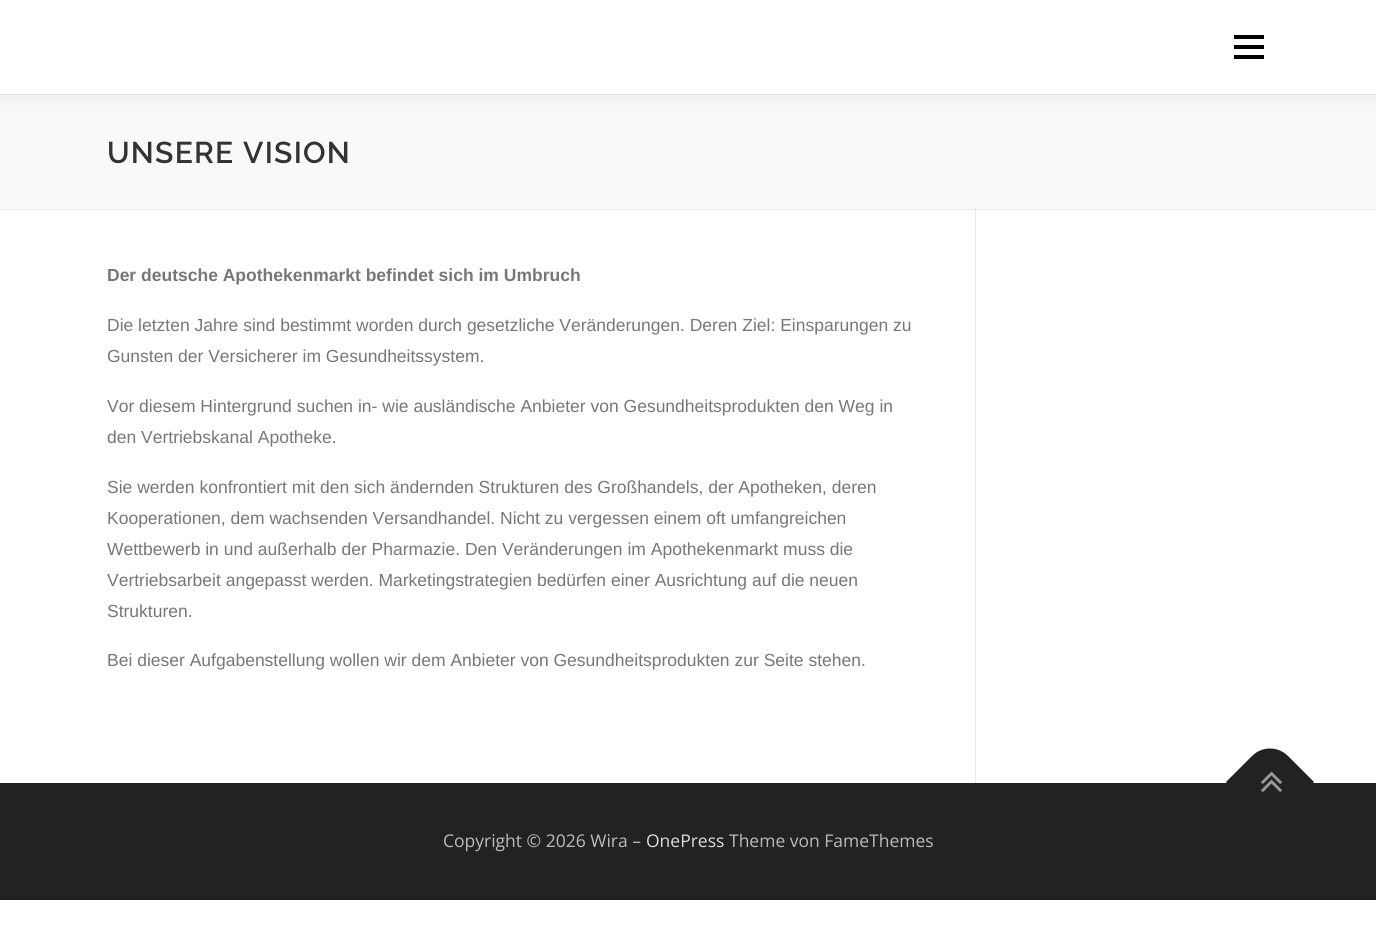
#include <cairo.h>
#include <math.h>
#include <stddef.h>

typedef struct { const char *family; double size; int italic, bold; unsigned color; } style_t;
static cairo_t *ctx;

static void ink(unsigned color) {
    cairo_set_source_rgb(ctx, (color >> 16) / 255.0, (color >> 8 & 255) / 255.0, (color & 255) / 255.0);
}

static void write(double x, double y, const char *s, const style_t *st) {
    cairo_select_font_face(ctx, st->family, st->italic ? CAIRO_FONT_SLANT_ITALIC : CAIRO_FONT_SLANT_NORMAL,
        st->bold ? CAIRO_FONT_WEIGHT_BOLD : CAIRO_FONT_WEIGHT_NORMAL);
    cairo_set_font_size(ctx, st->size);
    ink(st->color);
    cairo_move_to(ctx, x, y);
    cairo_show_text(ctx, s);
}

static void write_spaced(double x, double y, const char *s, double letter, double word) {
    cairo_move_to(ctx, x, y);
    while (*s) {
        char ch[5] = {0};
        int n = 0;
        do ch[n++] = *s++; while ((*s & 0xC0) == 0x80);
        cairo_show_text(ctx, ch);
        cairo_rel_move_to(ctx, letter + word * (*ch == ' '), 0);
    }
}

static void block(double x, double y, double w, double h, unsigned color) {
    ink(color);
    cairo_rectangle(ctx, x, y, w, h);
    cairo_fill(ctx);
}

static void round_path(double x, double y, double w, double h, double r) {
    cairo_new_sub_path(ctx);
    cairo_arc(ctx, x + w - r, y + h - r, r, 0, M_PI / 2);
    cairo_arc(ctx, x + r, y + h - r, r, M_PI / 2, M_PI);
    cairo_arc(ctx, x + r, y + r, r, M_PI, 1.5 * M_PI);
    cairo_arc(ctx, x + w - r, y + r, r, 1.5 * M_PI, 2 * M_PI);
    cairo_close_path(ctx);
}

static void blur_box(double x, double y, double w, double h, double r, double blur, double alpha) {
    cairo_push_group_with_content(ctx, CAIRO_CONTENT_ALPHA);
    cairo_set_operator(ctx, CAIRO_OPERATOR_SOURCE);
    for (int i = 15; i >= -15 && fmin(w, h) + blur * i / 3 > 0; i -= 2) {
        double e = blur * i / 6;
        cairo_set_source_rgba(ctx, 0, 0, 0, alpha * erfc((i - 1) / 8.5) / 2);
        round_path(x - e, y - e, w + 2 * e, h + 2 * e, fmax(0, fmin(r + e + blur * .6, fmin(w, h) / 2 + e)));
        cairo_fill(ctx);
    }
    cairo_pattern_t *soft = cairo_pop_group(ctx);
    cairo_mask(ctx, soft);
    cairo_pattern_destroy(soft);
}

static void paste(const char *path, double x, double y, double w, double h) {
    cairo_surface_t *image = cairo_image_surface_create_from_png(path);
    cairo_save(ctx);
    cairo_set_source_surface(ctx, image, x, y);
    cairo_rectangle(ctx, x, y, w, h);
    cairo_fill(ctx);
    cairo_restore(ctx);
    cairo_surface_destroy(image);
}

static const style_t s1 = {"Liberation Sans", 17.5, 0, 1, 0x777777};
static const style_t s2 = {"Liberation Sans", 17.5, 0, 0, 0x777777};
static const style_t s3 = {"Open Sans", 17.5, 0, 0, 0xbbbbbb};
static const style_t s4 = {"Open Sans", 17.5, 0, 0, 0xdddddd};

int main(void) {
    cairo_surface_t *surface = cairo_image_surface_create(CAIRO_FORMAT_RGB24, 1376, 948);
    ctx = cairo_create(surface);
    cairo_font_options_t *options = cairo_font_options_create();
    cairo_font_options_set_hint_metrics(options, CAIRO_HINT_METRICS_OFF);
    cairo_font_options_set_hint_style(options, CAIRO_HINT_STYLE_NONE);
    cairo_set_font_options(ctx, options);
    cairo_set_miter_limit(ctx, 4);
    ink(0xffffff);
    cairo_paint(ctx);
    block(0, 95, 1376, 114, 0xf8f9f9);
    block(0, 94, 1376, 1, 0xe9e9e9);
    ink(0x323232);
    blur_box(0, 6, 1376, 94, 0, 6, 0.06);
    block(0, 1, 1376, 93, 0xffffff);
    block(1234, 45, 30, 4, 0x000000);
    block(1234, 35, 30, 4, 0x000000);
    block(1234, 55, 30, 4, 0x000000);
    block(0, 209, 1376, 1, 0xe9e9e9);
    cairo_select_font_face(ctx, "Raleway SemiBold", CAIRO_FONT_SLANT_NORMAL, CAIRO_FONT_WEIGHT_NORMAL);
    cairo_set_font_size(ctx, 30);
    ink(0x333333);
    write_spaced(107, 163, "UNSERE VISION", 1.25, 0);
    block(975, 210, 1, 573, 0xe9e9e9);
    write(107, 281, "Der deutsche Apothekenmarkt befindet sich im Umbruch", &s1);
    write(107, 331, "Die letzten Jahre sind bestimmt worden durch gesetzliche Veränderungen. Deren Ziel: Einsparungen zu", &s2);
    write(107, 362, "Gunsten der Versicherer im Gesundheitssystem.", &s2);
    write(107, 412, "Vor diesem Hintergrund suchen in- wie ausländische Anbieter von Gesundheitsprodukten den Weg in", &s2);
    write(107, 443, "den Vertriebskanal Apotheke.", &s2);
    write(107, 493, "Sie werden konfrontiert mit den sich ändernden Strukturen des Großhandels, der Apotheken, deren", &s2);
    write(107, 524, "Kooperationen, dem wachsenden Versandhandel. Nicht zu vergessen einem oft umfangreichen", &s2);
    write(107, 555, "Wettbewerb in und außerhalb der Pharmazie. Den Veränderungen im Apothekenmarkt muss die", &s2);
    write(107, 586, "Vertriebsarbeit angepasst werden. Marketingstrategien bedürfen einer Ausrichtung auf die neuen", &s2);
    write(107, 617, "Strukturen.", &s2);
    write(107, 666, "Bei dieser Aufgabenstellung wollen wir dem Anbieter von Gesundheitsprodukten zur Seite stehen.", &s2);
    block(0, 783, 1376, 117, 0x222222);
    cairo_new_path(ctx);
    cairo_move_to(ctx, 1226, 782);
    cairo_line_to(ctx, 1252, 756);
    cairo_curve_to(ctx, 1262, 746, 1278, 746, 1288, 756);
    cairo_line_to(ctx, 1314, 782);
    cairo_line_to(ctx, 1270, 827);
    cairo_close_path(ctx);
    cairo_fill(ctx);
    paste("pic1.png", 1261, 771, 21, 21);
    write(443, 847, "Copyright © 2026 Wira –", &s3);
    write(646, 847, "OnePress", &s4);
    write(729, 847, "Theme von FameThemes", &s3);
    cairo_surface_write_to_png(surface, "screenshot.png");
    cairo_font_options_destroy(options);
    cairo_destroy(ctx);
    cairo_surface_destroy(surface);
    return 0;
}
